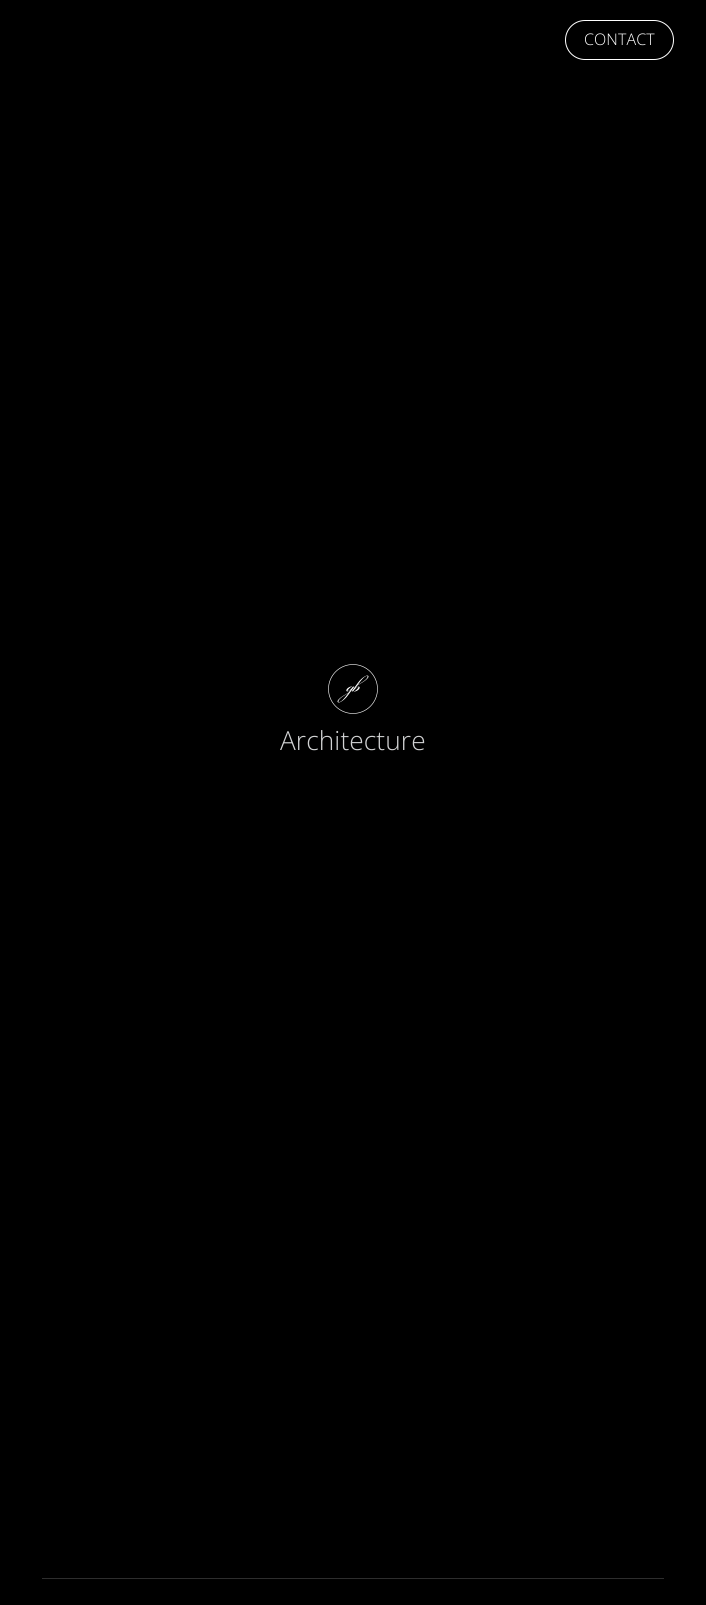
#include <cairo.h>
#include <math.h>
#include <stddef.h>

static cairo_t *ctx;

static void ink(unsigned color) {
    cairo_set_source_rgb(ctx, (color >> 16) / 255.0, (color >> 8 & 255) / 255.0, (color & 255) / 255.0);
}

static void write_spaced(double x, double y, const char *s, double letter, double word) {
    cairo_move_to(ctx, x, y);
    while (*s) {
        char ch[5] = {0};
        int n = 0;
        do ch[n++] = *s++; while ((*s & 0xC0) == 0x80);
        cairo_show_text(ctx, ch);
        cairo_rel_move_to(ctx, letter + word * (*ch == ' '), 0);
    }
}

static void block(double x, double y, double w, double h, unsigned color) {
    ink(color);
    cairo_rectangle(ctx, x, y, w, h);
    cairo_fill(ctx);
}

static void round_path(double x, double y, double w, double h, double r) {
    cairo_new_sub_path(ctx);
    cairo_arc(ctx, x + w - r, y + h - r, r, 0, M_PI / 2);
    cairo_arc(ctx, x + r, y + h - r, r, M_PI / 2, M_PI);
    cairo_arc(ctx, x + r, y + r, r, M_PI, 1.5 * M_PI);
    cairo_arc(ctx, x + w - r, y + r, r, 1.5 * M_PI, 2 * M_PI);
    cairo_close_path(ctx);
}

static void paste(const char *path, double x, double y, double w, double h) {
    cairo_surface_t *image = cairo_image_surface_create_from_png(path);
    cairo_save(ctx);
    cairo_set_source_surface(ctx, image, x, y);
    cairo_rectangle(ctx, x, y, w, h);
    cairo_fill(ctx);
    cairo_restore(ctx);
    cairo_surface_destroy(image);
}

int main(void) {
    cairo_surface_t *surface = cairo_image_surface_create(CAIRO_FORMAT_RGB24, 706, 1605);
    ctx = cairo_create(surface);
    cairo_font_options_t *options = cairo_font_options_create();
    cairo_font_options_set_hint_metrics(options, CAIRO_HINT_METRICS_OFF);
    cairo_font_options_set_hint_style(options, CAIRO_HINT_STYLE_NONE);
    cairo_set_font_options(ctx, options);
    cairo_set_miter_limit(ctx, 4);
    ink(0x000000);
    cairo_paint(ctx);
    round_path(565.5, 20.5, 108, 39, 19.5);
    ink(0xffffff);
    cairo_set_line_width(ctx, 1);
    cairo_stroke(ctx);
    cairo_select_font_face(ctx, "Open Sans Light", CAIRO_FONT_SLANT_NORMAL, CAIRO_FONT_WEIGHT_NORMAL);
    cairo_set_font_size(ctx, 16);
    write_spaced(584, 45, "CONTACT", 0.1, 0);
    paste("pic1.png", 328, 664, 50, 50);
    cairo_set_font_size(ctx, 26.25);
    ink(0xd2d3d4);
    write_spaced(280, 750, "Architecture", 0.1, 0);
    block(42, 1578, 622, 1, 0x2d2d2d);
    cairo_surface_write_to_png(surface, "screenshot.png");
    cairo_font_options_destroy(options);
    cairo_destroy(ctx);
    cairo_surface_destroy(surface);
    return 0;
}
